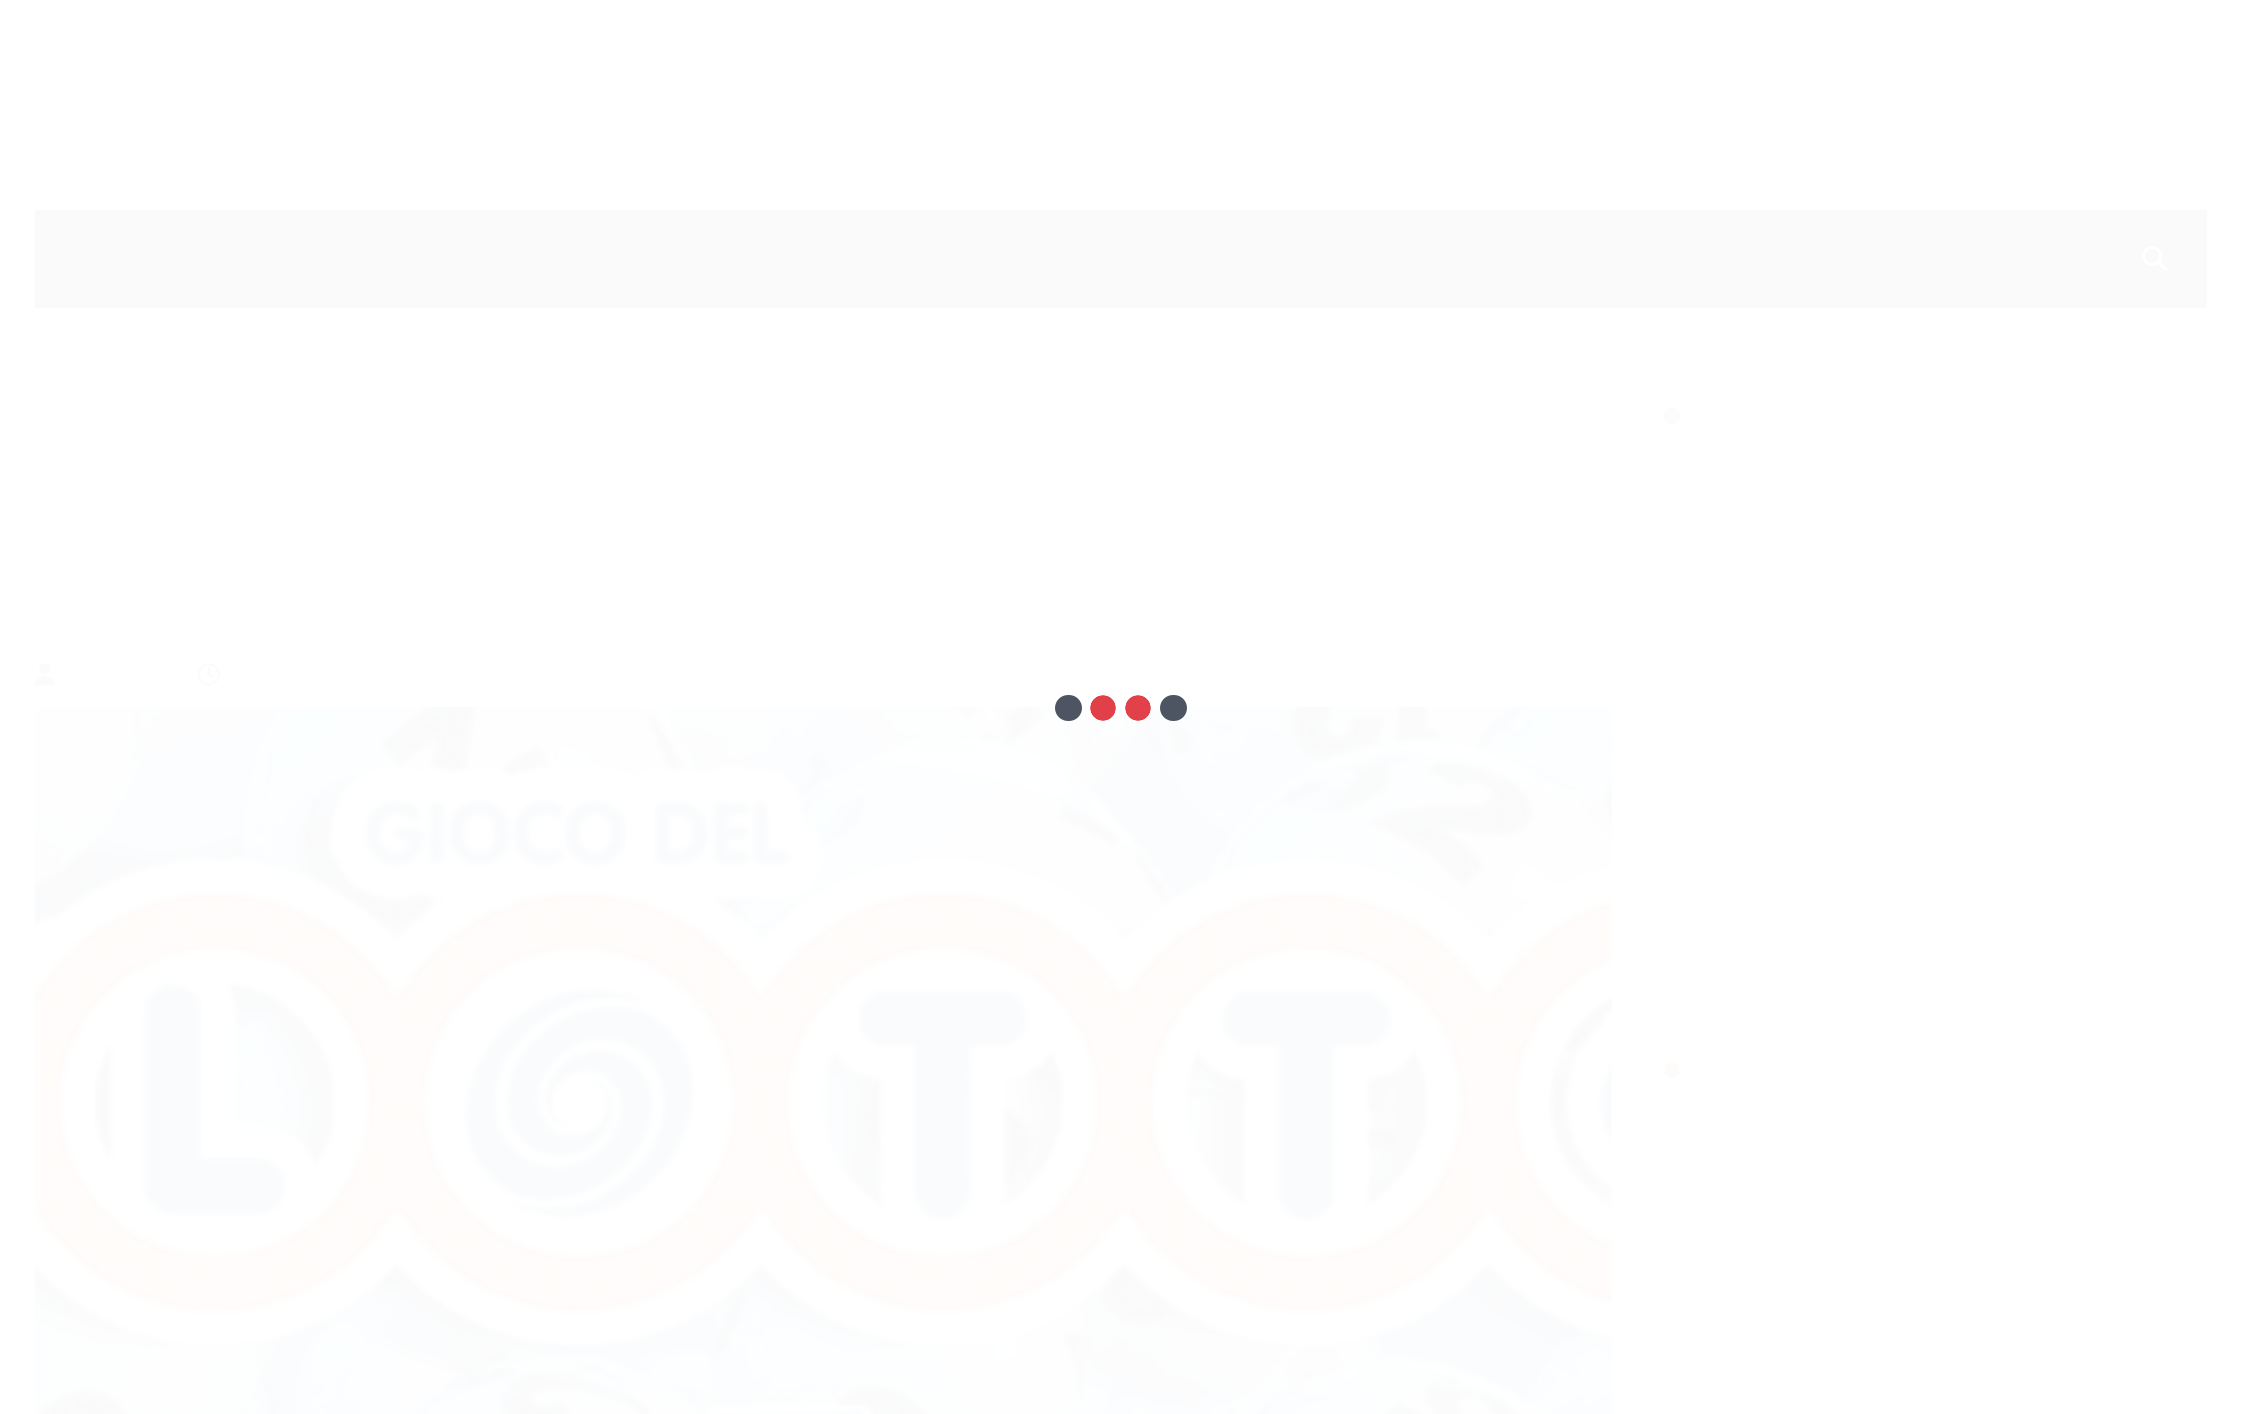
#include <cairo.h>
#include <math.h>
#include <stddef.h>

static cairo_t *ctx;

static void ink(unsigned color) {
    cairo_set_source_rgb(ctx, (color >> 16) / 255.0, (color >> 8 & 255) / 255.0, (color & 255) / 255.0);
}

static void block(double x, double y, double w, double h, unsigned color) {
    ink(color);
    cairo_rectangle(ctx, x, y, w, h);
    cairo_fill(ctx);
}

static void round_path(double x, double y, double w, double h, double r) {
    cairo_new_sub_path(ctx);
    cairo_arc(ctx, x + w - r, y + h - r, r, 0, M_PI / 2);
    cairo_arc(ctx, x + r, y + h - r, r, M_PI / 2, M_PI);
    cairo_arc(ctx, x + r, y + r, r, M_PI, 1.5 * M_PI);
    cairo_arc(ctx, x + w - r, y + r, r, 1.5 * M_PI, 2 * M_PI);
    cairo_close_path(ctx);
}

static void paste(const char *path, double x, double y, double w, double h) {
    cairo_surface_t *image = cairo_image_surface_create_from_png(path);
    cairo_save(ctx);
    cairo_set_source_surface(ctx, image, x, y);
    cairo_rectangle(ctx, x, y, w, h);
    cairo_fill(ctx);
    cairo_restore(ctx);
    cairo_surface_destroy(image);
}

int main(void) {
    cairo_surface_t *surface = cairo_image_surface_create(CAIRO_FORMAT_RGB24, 2241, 1414);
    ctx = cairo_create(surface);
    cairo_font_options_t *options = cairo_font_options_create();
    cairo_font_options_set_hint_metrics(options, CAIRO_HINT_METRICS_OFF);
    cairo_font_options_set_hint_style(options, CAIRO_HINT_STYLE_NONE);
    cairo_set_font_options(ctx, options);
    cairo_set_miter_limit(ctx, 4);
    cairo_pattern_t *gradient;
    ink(0xffffff);
    cairo_paint(ctx);
    block(35, 210, 2172, 98, 0xfafafa);
    paste("pic1.png", 2142, 245, 25, 26);
    paste("pic2.png", 35, 663, 20, 23);
    paste("pic3.png", 197, 663, 23, 23);
    paste("pic4.png", 35, 707, 1577, 707);
    ink(0xfefbfb);
    cairo_arc(ctx, 1672, 416, 8, 0, 2 * M_PI);
    cairo_fill(ctx);
    cairo_arc(ctx, 1672, 1070, 8, 0, 2 * M_PI);
    cairo_fill(ctx);
    gradient = cairo_pattern_create_radial(1138, 708, 0, 1138, 708, 13);
    cairo_pattern_add_color_stop_rgba(gradient, 0.95, 0.875, 0.18, 0.22, 0.91);
    cairo_pattern_add_color_stop_rgba(gradient, 1, 0.875, 0.18, 0.22, 0);
    cairo_set_source(ctx, gradient);
    cairo_pattern_destroy(gradient);
    cairo_rectangle(ctx, 1125, 695, 26, 26);
    cairo_fill(ctx);
    gradient = cairo_pattern_create_radial(1103, 708, 0, 1103, 708, 13);
    cairo_pattern_add_color_stop_rgba(gradient, 0.95, 0.886, 0.251, 0.286, 1);
    cairo_pattern_add_color_stop_rgba(gradient, 1, 0.996, 0.996, 0.996, 1);
    cairo_set_source(ctx, gradient);
    cairo_pattern_destroy(gradient);
    cairo_rectangle(ctx, 1090, 695, 26, 26);
    cairo_fill(ctx);
    cairo_set_source_rgba(ctx, 0.239, 0.267, 0.322, 0.91);
    round_path(1055, 695, 27, 26, 13);
    cairo_fill(ctx);
    round_path(1160, 695, 27, 26, 13);
    cairo_fill(ctx);
    cairo_surface_write_to_png(surface, "screenshot.png");
    cairo_font_options_destroy(options);
    cairo_destroy(ctx);
    cairo_surface_destroy(surface);
    return 0;
}
